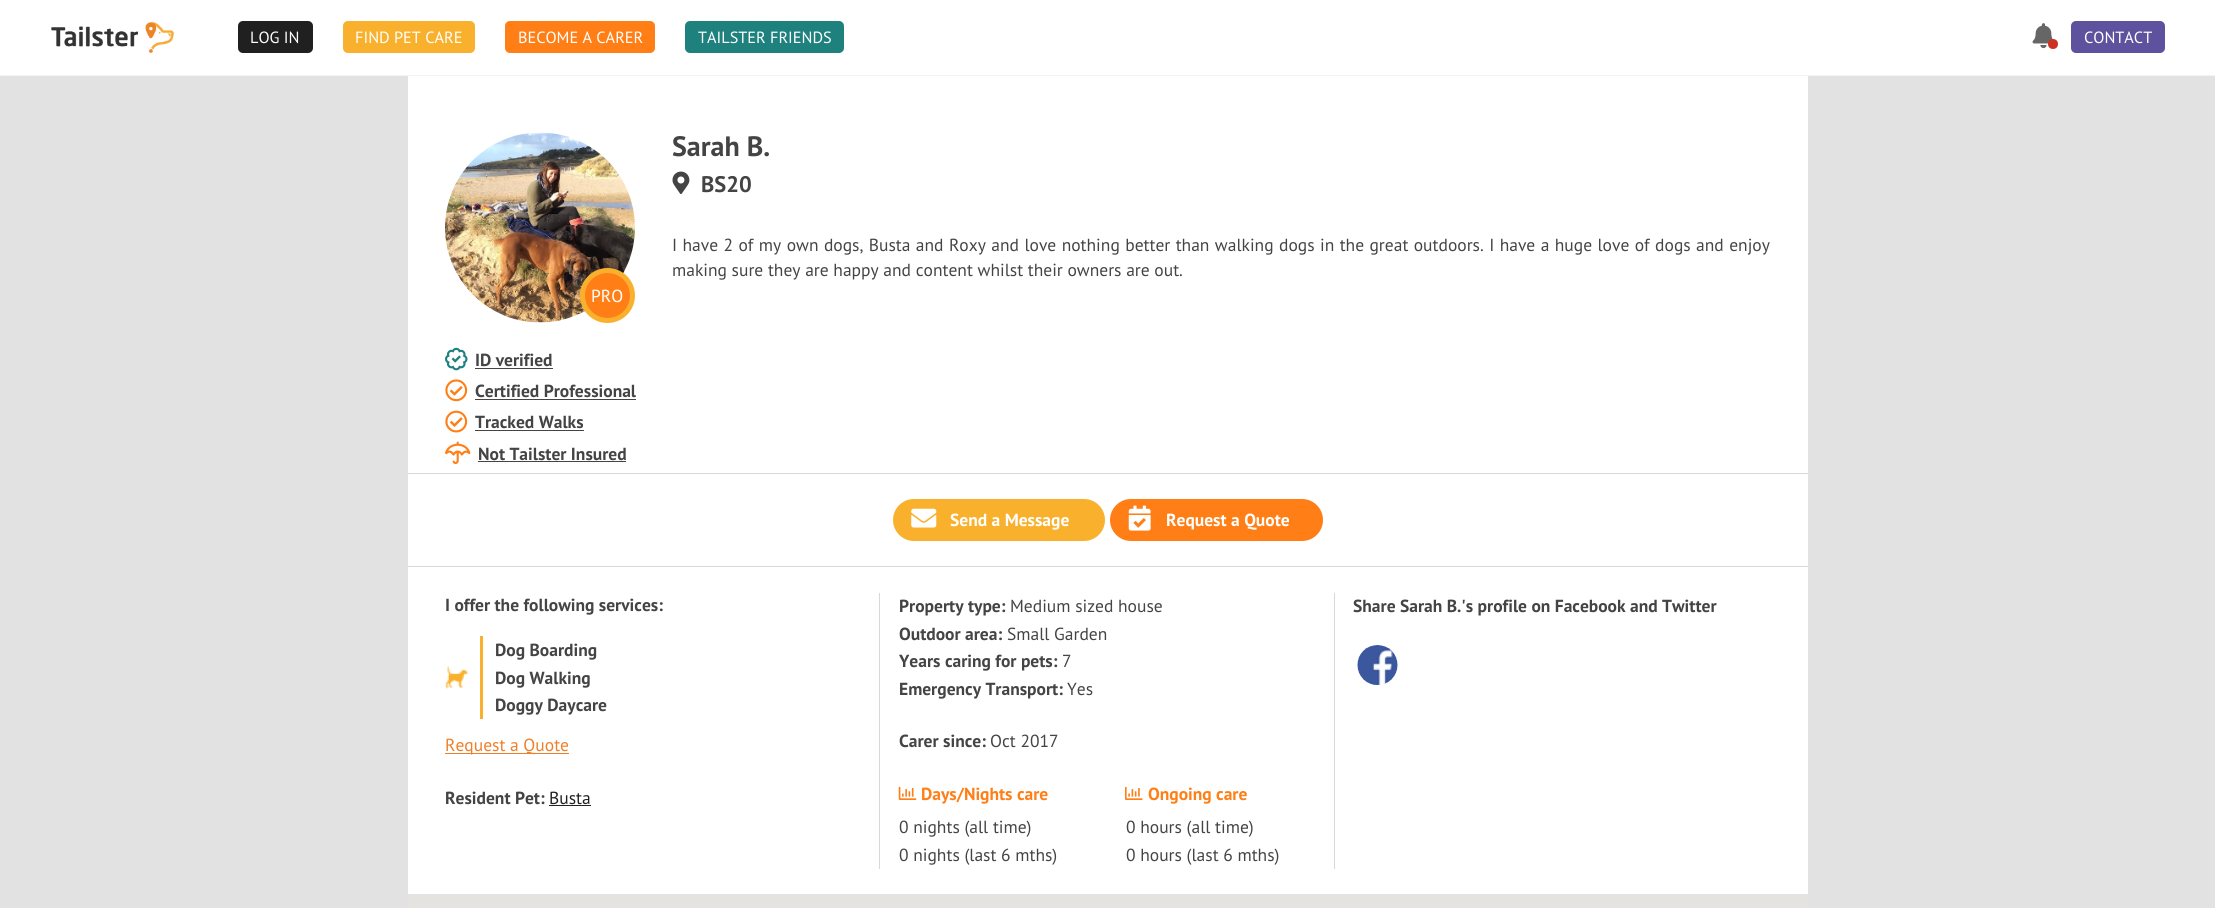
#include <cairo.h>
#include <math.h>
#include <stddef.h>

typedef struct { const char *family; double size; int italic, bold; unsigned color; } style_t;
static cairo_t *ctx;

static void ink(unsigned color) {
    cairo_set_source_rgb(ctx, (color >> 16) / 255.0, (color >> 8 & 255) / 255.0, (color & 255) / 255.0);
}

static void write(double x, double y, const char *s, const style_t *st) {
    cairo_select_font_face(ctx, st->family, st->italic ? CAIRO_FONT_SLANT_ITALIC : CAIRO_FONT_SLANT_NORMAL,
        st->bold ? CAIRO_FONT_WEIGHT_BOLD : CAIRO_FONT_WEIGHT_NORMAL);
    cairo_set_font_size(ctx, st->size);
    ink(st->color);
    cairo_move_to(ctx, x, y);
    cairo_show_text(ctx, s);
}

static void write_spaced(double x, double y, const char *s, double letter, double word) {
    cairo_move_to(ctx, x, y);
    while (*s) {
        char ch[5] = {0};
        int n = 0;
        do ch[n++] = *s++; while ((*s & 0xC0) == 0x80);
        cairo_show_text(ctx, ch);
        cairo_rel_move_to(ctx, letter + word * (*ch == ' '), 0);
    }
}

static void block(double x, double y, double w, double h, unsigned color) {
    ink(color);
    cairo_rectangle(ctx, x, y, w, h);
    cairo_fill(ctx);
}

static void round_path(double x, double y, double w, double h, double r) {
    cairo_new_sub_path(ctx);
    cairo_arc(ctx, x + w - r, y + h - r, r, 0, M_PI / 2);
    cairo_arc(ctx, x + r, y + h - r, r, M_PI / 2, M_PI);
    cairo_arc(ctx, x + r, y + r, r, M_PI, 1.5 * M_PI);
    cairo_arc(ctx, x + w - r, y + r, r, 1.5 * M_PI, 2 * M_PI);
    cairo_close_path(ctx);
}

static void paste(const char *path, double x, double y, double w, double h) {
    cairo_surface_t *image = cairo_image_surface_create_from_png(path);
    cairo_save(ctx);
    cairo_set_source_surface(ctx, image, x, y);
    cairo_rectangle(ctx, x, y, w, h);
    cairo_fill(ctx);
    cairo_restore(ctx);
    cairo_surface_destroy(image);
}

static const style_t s1 = {"PT Sans", 16.25, 0, 0, 0xffffff};
static const style_t s2 = {"PT Sans", 28, 0, 1, 0x444444};
static const style_t s3 = {"PT Sans", 22.5, 0, 1, 0x444444};
static const style_t s4 = {"PT Sans", 17.5, 0, 0, 0x444444};
static const style_t s5 = {"PT Sans", 17.5, 0, 0, 0xffffff};
static const style_t s6 = {"PT Sans", 17.5, 0, 1, 0x444444};
static const style_t s7 = {"PT Sans", 17.5, 0, 1, 0xffffff};
static const style_t s8 = {"PT Sans", 17.5, 0, 0, 0xef7e28};
static const style_t s9 = {"PT Sans", 17.5, 0, 0, 0x202020};
static const style_t s10 = {"PT Sans", 17.5, 0, 1, 0xff7f16};

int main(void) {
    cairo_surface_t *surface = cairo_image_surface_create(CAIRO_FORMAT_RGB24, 2215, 908);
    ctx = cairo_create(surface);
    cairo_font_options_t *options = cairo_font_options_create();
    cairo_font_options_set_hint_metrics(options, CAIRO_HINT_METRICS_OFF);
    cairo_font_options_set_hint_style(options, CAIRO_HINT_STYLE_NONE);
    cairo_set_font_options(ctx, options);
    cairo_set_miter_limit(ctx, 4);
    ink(0xe2e2e2);
    cairo_paint(ctx);
    block(0, 75, 2215, 1, 0xf5f4f4);
    block(0, 0, 2215, 75, 0xffffff);
    paste("pic1.png", 51, 22, 123, 31);
    ink(0x202020);
    round_path(238, 21, 75, 32, 5);
    cairo_fill(ctx);
    write(250, 43, "LOG IN", &s1);
    ink(0xf9b12d);
    round_path(343, 21, 132, 32, 5);
    cairo_fill(ctx);
    write(355, 43, "FIND PET CARE", &s1);
    ink(0xff7f16);
    round_path(505, 21, 150, 32, 5);
    cairo_fill(ctx);
    write(518, 43, "BECOME A CARER", &s1);
    ink(0x1e817e);
    round_path(685, 21, 159, 32, 5);
    cairo_fill(ctx);
    write(698, 43, "TAILSTER FRIENDS", &s1);
    paste("pic2.png", 2032, 23, 22, 26);
    ink(0xcc3124);
    cairo_arc(ctx, 2053, 44, 5, 0, 2 * M_PI);
    cairo_fill(ctx);
    ink(0x5e519d);
    round_path(2071, 21, 94, 32, 5);
    cairo_fill(ctx);
    write(2084, 43, "CONTACT", &s1);
    block(408, 76, 1400, 818, 0xffffff);
    write(672, 156, "Sarah B.", &s2);
    paste("pic3.png", 672, 171, 18, 23);
    write(701, 192, "BS20", &s3);
    cairo_select_font_face(ctx, "PT Sans", CAIRO_FONT_SLANT_NORMAL, CAIRO_FONT_WEIGHT_NORMAL);
    cairo_set_font_size(ctx, 17.5);
    write_spaced(672, 251, "I have 2 of my own dogs, Busta and Roxy and love nothing better than walking dogs in the great outdoors. I have a huge love of dogs and enjoy", 0, 0.75);
    write(672, 276, "making sure they are happy and content whilst their owners are out.", &s4);
    paste("pic4.png", 445, 132, 190, 191);
    ink(0xff7f16);
    cairo_arc(ctx, 607.5, 295.5, 25, 0, 2 * M_PI);
    cairo_fill_preserve(ctx);
    ink(0xf9b12d);
    cairo_set_line_width(ctx, 5);
    cairo_stroke(ctx);
    write(591, 302, "PRO", &s5);
    paste("pic5.png", 445, 347, 23, 24);
    write(475, 366, "ID verified", &s6);
    block(475, 368, 78, 1, 0x444444);
    paste("pic6.png", 445, 379, 23, 23);
    write(475, 397, "Certified Professional", &s6);
    block(475, 399, 161, 1, 0x444444);
    paste("pic7.png", 445, 410, 23, 23);
    write(475, 428, "Tracked Walks", &s6);
    block(475, 430, 109, 1, 0x444444);
    paste("pic8.png", 445, 441, 26, 24);
    write(478, 460, "Not Tailster Insured", &s6);
    block(478, 461, 148, 1, 0x444444);
    block(408, 473, 1400, 1, 0xd8d8d8);
    block(408, 566, 1400, 1, 0xd8d8d8);
    ink(0xf9b12d);
    round_path(893, 499, 212, 42, 21);
    cairo_fill(ctx);
    paste("pic9.png", 911, 508, 26, 20);
    write(950, 526, "Send a Message", &s7);
    ink(0xff7f16);
    round_path(1110, 499, 213, 42, 21);
    cairo_fill(ctx);
    paste("pic10.png", 1128, 505, 23, 26);
    write(1166, 526, "Request a Quote", &s7);
    block(879, 593, 1, 276, 0xd8d8d8);
    write(445, 611, "I offer the following services:", &s6);
    paste("pic11.png", 445, 666, 23, 23);
    block(480, 636, 3, 83, 0xf9b12d);
    write(495, 656, "Dog Boarding", &s6);
    write(495, 684, "Dog Walking", &s6);
    write(495, 711, "Doggy Daycare", &s6);
    block(445, 753, 124, 1, 0xef7e28);
    write(445, 751, "Request a Quote", &s8);
    write(445, 804, "Resident Pet:", &s6);
    write(549, 804, "Busta", &s9);
    block(549, 805, 42, 1, 0x202020);
    block(1334, 593, 1, 276, 0xd8d8d8);
    write(899, 612, "Property type:", &s6);
    write(1010, 612, "Medium sized house", &s4);
    write(899, 640, "Outdoor area:", &s6);
    write(1007, 640, "Small Garden", &s4);
    write(899, 667, "Years caring for pets:", &s6);
    write(1062, 667, "7", &s4);
    write(899, 695, "Emergency Transport:", &s6);
    write(1067, 695, "Yes", &s4);
    write(899, 747, "Carer since:", &s6);
    write(990, 747, "Oct 2017", &s4);
    paste("pic12.png", 898, 786, 19, 14);
    write(921, 800, "Days/Nights care", &s10);
    write(899, 833, "0 nights (all time)", &s4);
    write(899, 861, "0 nights (last 6 mths)", &s4);
    paste("pic13.png", 1125, 786, 18, 14);
    write(1148, 800, "Ongoing care", &s10);
    write(1126, 833, "0 hours (all time)", &s4);
    write(1126, 861, "0 hours (last 6 mths)", &s4);
    write(1353, 612, "Share Sarah B.'s profile on Facebook and Twitter", &s6);
    paste("pic14.png", 1357, 645, 41, 40);
    block(408, 894, 1400, 14, 0xe5e3df);
    cairo_surface_write_to_png(surface, "screenshot.png");
    cairo_font_options_destroy(options);
    cairo_destroy(ctx);
    cairo_surface_destroy(surface);
    return 0;
}
